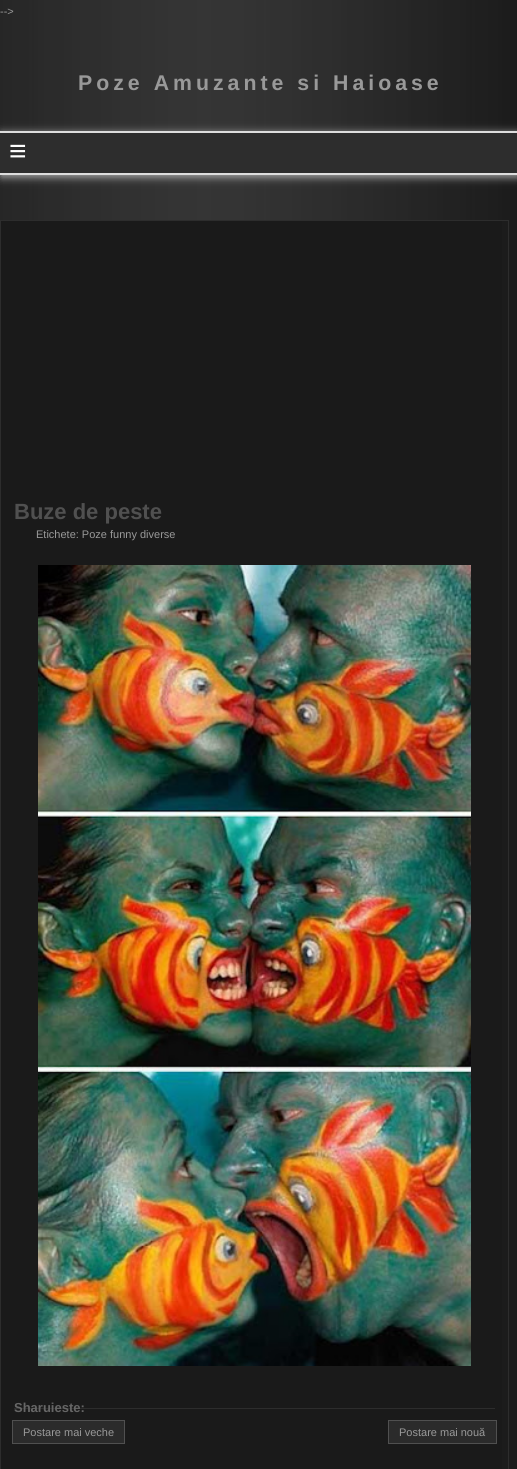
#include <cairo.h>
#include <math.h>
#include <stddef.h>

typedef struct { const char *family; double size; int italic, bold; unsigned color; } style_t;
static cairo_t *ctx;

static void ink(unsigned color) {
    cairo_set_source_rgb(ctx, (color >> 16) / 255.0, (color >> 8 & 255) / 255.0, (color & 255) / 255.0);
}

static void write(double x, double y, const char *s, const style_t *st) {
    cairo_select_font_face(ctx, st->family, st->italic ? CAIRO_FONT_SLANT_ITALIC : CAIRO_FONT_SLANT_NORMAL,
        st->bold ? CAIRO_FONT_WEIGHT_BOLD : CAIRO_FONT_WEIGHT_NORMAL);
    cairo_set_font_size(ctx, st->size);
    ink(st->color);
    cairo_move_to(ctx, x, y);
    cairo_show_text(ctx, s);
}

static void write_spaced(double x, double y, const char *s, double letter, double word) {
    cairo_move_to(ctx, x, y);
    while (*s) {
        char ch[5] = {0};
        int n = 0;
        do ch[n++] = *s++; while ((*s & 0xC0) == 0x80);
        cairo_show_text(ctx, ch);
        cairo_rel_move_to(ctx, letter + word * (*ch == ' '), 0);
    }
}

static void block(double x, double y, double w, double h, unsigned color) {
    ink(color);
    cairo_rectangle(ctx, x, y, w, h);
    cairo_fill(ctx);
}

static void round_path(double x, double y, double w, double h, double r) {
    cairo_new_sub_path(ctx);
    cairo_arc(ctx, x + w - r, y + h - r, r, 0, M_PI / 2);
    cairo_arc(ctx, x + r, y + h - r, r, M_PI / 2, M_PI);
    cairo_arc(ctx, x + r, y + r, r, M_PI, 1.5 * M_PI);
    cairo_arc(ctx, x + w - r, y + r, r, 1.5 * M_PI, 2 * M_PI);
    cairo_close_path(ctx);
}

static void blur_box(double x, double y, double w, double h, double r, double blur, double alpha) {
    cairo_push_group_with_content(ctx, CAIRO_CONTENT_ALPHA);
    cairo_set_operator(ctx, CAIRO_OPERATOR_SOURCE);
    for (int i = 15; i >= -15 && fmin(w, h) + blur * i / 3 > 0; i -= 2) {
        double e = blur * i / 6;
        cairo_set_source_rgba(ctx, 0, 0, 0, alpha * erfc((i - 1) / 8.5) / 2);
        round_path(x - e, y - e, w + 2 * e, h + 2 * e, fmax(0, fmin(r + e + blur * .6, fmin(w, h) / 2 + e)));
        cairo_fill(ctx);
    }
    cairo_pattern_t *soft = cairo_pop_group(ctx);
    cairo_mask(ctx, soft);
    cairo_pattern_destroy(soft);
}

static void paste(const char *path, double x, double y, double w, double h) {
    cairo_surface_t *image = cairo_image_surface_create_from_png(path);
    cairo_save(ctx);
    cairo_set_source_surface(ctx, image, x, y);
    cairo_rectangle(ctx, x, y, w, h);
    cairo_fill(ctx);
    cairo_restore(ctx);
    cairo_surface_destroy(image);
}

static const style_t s1 = {"Liberation Sans", 11, 0, 0, 0x999999};
static const style_t s2 = {"Liberation Sans", 30, 0, 1, 0xffffff};
static const style_t s3 = {"Liberation Sans", 22, 0, 1, 0x505050};
static const style_t s4 = {"Liberation Sans", 13, 0, 1, 0x666666};

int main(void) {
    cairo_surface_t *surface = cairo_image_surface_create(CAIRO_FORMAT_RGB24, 517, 1469);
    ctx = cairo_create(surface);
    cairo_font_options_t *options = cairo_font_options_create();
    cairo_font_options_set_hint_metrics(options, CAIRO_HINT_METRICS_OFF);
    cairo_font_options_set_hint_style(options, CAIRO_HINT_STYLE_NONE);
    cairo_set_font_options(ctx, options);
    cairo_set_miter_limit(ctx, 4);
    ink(0xffffff);
    cairo_paint(ctx);
    paste("pic1.png", 0, 0, 517, 1469);
    write(0, 15, "-->", &s1);
    cairo_select_font_face(ctx, "Liberation Sans", CAIRO_FONT_SLANT_NORMAL, CAIRO_FONT_WEIGHT_BOLD);
    cairo_set_font_size(ctx, 21.3);
    write_spaced(78, 90, "Poze Amuzante si Haioase", 4, 0);
    ink(0xb1b1b1);
    blur_box(1, 133, 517, 44, 0, 4.5, 1);
    block(0, 133, 517, 40, 0x2d2d2d);
    block(0, 131, 517, 2, 0xdddddd);
    block(0, 173, 517, 2, 0xdddddd);
    write(9, 161, "≡", &s2);
    block(1, 221, 501, 1248, 0x1a1a1a);
    cairo_rectangle(ctx, 0.5, 220.5, 508, 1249);
    ink(0x2d2d2d);
    cairo_set_line_width(ctx, 1);
    cairo_stroke(ctx);
    block(14, 1408, 481, 1, 0x2d2d2d);
    write(14, 519, "Buze de peste", &s3);
    write(36, 538, "Etichete: Poze funny diverse", &s1);
    paste("pic2.png", 38, 565, 433, 801);
    write(14, 1412, "Sharuieste:", &s4);
    ink(0x2b2b2b);
    cairo_rectangle(ctx, 12.5, 1420.5, 112, 23);
    cairo_fill_preserve(ctx);
    ink(0x505050);
    cairo_stroke(ctx);
    write(23, 1436, "Postare mai veche", &s1);
    ink(0x2b2b2b);
    cairo_rectangle(ctx, 388.5, 1420.5, 108, 23);
    cairo_fill_preserve(ctx);
    ink(0x505050);
    cairo_stroke(ctx);
    write(399, 1436, "Postare mai nouă", &s1);
    cairo_surface_write_to_png(surface, "screenshot.png");
    cairo_font_options_destroy(options);
    cairo_destroy(ctx);
    cairo_surface_destroy(surface);
    return 0;
}
